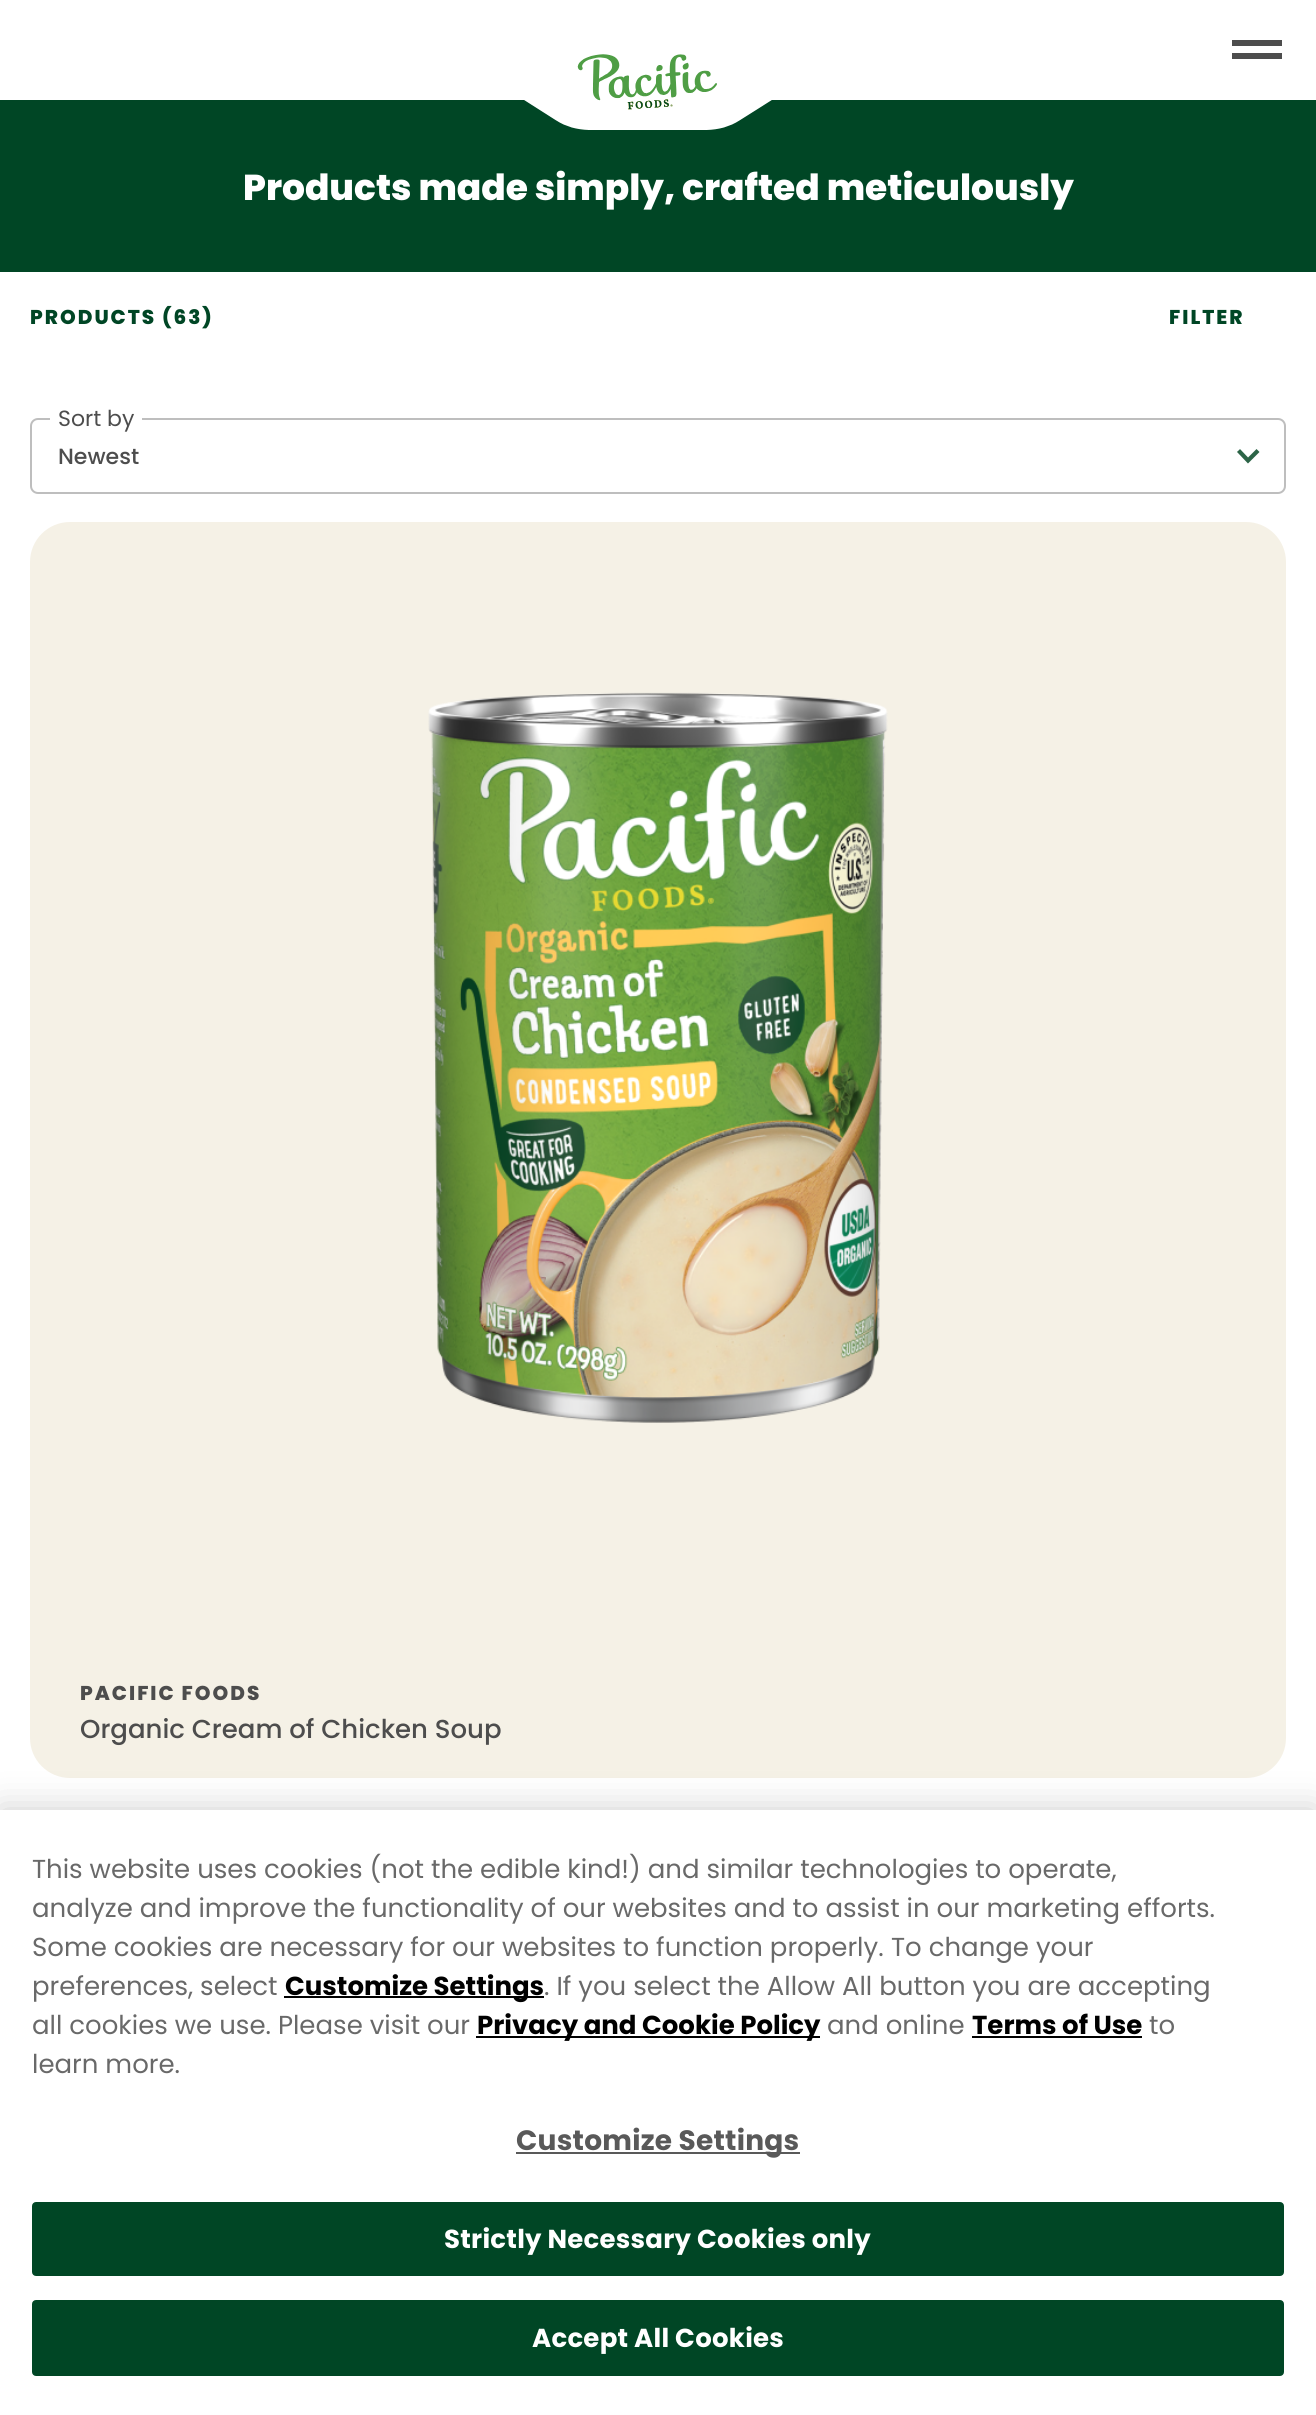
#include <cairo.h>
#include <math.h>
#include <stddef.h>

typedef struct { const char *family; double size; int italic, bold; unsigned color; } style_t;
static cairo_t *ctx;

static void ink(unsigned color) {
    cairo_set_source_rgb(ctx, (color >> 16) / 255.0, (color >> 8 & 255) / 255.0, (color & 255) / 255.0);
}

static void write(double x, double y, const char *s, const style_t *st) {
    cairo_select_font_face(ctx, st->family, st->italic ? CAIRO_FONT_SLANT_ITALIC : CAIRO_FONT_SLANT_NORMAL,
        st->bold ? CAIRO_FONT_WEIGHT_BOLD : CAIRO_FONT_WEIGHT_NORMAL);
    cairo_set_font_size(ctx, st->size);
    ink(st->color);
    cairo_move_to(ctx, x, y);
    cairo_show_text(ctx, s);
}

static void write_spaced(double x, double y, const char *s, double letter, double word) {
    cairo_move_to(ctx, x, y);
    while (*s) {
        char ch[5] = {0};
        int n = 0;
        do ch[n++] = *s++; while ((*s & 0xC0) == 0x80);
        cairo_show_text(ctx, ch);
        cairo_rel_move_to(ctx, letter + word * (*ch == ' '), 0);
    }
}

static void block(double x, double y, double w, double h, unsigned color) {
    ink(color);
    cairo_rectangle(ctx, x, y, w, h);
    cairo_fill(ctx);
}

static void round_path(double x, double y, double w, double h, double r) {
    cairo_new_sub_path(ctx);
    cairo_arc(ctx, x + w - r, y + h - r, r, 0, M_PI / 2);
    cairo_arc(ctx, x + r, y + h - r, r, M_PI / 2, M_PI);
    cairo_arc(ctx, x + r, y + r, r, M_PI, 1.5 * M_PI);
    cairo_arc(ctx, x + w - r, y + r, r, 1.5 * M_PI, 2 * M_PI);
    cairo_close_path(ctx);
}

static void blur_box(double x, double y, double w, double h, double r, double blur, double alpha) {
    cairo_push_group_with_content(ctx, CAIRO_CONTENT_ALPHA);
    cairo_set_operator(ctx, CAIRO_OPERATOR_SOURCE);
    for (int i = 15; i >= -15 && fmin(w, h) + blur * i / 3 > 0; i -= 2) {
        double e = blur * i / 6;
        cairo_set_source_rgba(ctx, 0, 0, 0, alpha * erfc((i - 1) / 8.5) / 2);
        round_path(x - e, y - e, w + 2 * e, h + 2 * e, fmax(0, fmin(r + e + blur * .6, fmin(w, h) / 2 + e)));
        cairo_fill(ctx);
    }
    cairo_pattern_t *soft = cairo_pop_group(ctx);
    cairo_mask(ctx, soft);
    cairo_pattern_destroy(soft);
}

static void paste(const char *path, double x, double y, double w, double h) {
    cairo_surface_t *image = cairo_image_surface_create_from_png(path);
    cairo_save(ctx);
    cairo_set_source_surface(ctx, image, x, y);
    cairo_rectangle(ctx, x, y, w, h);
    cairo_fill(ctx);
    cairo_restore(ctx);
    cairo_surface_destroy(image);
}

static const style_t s1 = {"Poppins ExtraBold", 36, 0, 0, 0xffffff};
static const style_t s2 = {"Poppins", 22, 0, 0, 0x4d4d4d};
static const style_t s3 = {"Poppins Medium", 22, 0, 0, 0x4d4d4d};
static const style_t s4 = {"Poppins Medium", 26, 0, 0, 0x4d4d4d};
static const style_t s5 = {"Poppins", 26, 0, 0, 0x696969};
static const style_t s6 = {"Poppins", 26, 0, 1, 0x000000};

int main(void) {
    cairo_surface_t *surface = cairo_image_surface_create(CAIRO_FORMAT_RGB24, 1316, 2415);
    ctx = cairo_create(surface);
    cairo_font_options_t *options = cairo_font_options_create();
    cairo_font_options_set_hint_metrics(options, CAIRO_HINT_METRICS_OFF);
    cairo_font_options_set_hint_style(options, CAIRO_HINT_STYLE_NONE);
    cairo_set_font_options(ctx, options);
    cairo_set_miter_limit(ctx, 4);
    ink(0xffffff);
    cairo_paint(ctx);
    block(1232, 40, 50, 6, 0x4d4d4d);
    block(1232, 53, 50, 6, 0x4d4d4d);
    block(0, 100, 1316, 172, 0x004625);
    paste("pic1.png", 524, 54, 248, 76);
    write(243, 200, "Products made simply, crafted meticulously", &s1);
    cairo_set_font_size(ctx, 20);
    ink(0x004625);
    write_spaced(30, 324, "PRODUCTS (63)", 2, 0);
    write_spaced(1169, 324, "FILTER", 2, 0);
    cairo_new_path(ctx);
    cairo_move_to(ctx, 1258, 450.5);
    cairo_line_to(ctx, 1248, 460.5);
    cairo_line_to(ctx, 1238.5, 450.5);
    ink(0x2c6447);
    cairo_set_line_width(ctx, 4.2);
    cairo_stroke(ctx);
    round_path(31, 419, 1254, 74, 7);
    ink(0xbebebe);
    cairo_set_line_width(ctx, 2);
    cairo_stroke(ctx);
    block(50, 418, 92, 2, 0xffffff);
    write(58, 426, "Sort by", &s2);
    write(58, 464, "Newest", &s3);
    ink(0xf5f1e6);
    round_path(30, 522, 1256, 1256, 40);
    cairo_fill(ctx);
    paste("pic2.png", 428, 692, 460, 731);
    cairo_select_font_face(ctx, "Poppins ExtraBold", CAIRO_FONT_SLANT_NORMAL, CAIRO_FONT_WEIGHT_NORMAL);
    cairo_set_font_size(ctx, 20);
    ink(0x4d4d4d);
    write_spaced(80, 1700, "PACIFIC FOODS", 2, 0);
    write(80, 1738, "Organic Cream of Chicken Soup", &s4);
    ink(0x000000);
    blur_box(0, 1810, 1316, 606, 0, 18, 0.2);
    block(0, 1810, 1316, 605, 0xffffff);
    write(32, 1878, "This website uses cookies (not the edible kind!) and similar technologies to operate,", &s5);
    write(32, 1917, "analyze and improve the functionality of our websites and to assist in our marketing efforts.", &s5);
    write(32, 1956, "Some cookies are necessary for our websites to function properly.", &s5);
    write(891, 1956, "To change your", &s5);
    write(32, 1995, "preferences, select", &s5);
    block(284, 1996, 260, 2, 0x000000);
    write(285, 1995, "Customize Settings", &s6);
    write(544, 1995, ". If you select the Allow All button you are accepting", &s5);
    write(32, 2034, "all cookies we use. Please visit our", &s5);
    block(476, 2036, 344, 2, 0x000000);
    write(477, 2034, "Privacy and Cookie Policy", &s6);
    write(827, 2034, "and online", &s5);
    write(972, 2034, "Terms of Use", &s6);
    block(972, 2036, 170, 2, 0x000000);
    write(1149, 2034, "to", &s5);
    write(32, 2073, "learn more.", &s5);
    block(516, 2152, 284, 2, 0x595959);
    cairo_select_font_face(ctx, "Poppins", CAIRO_FONT_SLANT_NORMAL, CAIRO_FONT_WEIGHT_BOLD);
    cairo_set_font_size(ctx, 28);
    write_spaced(516, 2150, "Customize Settings", 0.25, 0);
    ink(0x004625);
    round_path(33, 2203, 1250, 72, 3);
    cairo_fill_preserve(ctx);
    cairo_stroke(ctx);
    cairo_set_font_size(ctx, 26);
    ink(0xffffff);
    write_spaced(444, 2248, "Strictly Necessary Cookies only", 0.25, 0);
    ink(0x004625);
    round_path(33, 2301, 1250, 74, 3);
    cairo_fill_preserve(ctx);
    cairo_stroke(ctx);
    ink(0xffffff);
    write_spaced(532, 2347, "Accept All Cookies", 0.25, 0);
    cairo_surface_write_to_png(surface, "screenshot.png");
    cairo_font_options_destroy(options);
    cairo_destroy(ctx);
    cairo_surface_destroy(surface);
    return 0;
}
